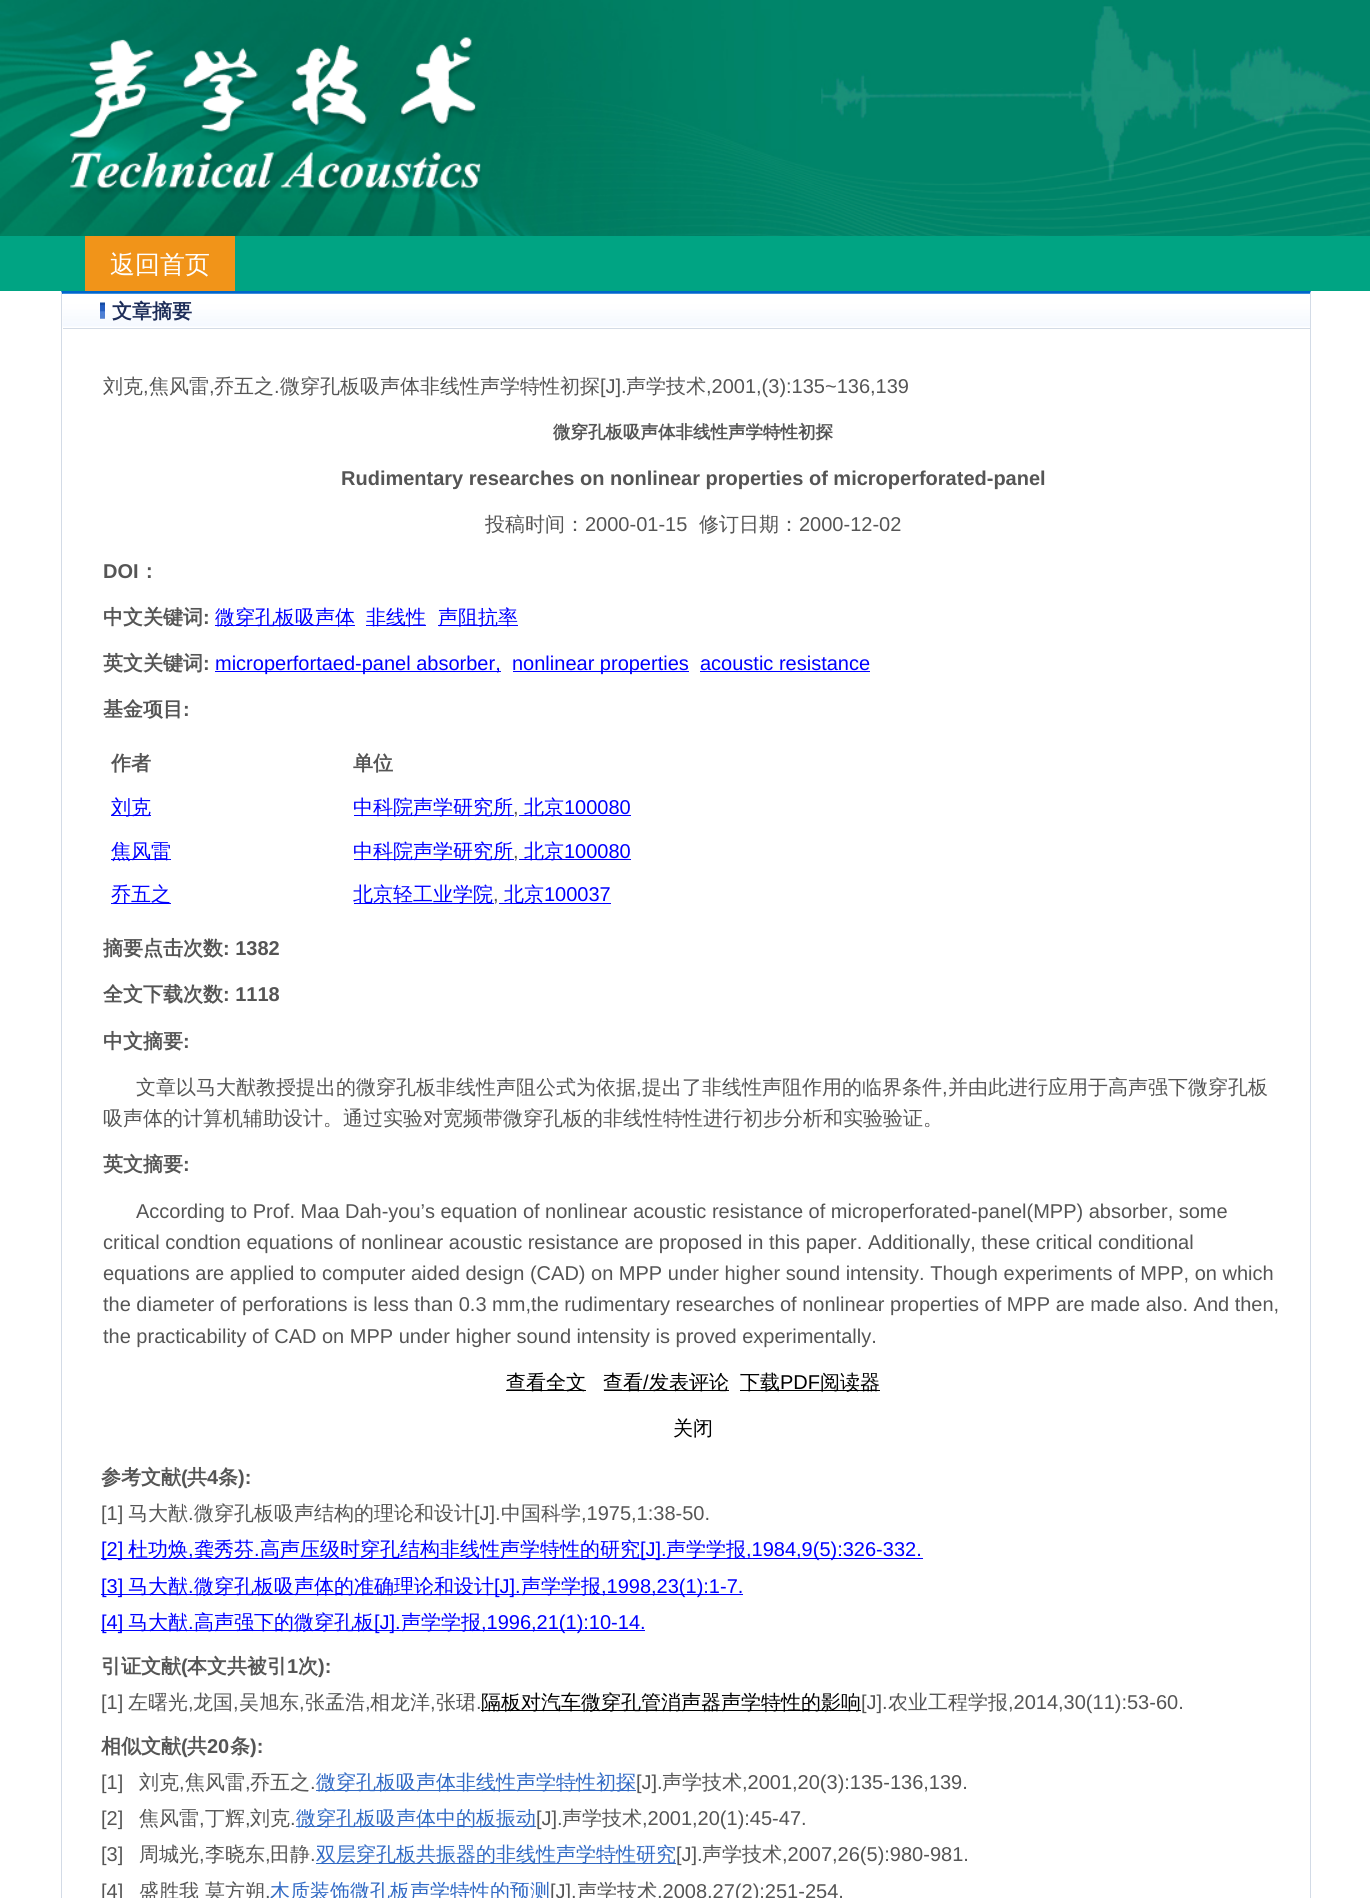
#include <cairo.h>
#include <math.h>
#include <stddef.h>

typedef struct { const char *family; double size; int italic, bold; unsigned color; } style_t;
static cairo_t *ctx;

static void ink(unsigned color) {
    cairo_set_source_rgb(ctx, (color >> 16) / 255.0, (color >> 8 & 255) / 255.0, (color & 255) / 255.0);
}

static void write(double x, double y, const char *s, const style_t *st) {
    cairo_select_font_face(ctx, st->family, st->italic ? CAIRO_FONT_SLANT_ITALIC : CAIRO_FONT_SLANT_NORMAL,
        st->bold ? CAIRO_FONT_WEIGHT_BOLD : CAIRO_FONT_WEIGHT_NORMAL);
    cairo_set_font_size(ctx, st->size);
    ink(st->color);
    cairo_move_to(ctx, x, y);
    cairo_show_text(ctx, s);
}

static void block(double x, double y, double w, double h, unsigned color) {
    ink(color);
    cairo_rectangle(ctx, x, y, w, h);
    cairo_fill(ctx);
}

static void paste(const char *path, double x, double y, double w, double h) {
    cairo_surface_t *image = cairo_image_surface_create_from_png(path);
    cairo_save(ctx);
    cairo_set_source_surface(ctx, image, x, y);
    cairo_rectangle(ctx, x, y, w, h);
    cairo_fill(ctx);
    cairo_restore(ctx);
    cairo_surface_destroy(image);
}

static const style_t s1 = {"WenQuanYi Zen Hei Medium", 25, 0, 0, 0xffffff};
static const style_t s2 = {"WenQuanYi Zen Hei", 20, 0, 1, 0x1c2c58};
static const style_t s3 = {"WenQuanYi Zen Hei Medium", 20, 0, 0, 0x555555};
static const style_t s4 = {"Liberation Sans", 20, 0, 0, 0x555555};
static const style_t s5 = {"WenQuanYi Zen Hei", 17.5, 0, 1, 0x555555};
static const style_t s6 = {"Liberation Sans", 20, 0, 1, 0x555555};
static const style_t s7 = {"WenQuanYi Zen Hei", 20, 0, 1, 0x555555};
static const style_t s8 = {"WenQuanYi Zen Hei Medium", 20, 0, 0, 0x0000ff};
static const style_t s9 = {"Liberation Sans", 20, 0, 0, 0x0000ff};
static const style_t s10 = {"WenQuanYi Zen Hei Medium", 20, 0, 0, 0x000000};
static const style_t s11 = {"Liberation Sans", 20, 0, 0, 0x000000};
static const style_t s12 = {"WenQuanYi Zen Hei Medium", 20, 0, 0, 0x316ac5};

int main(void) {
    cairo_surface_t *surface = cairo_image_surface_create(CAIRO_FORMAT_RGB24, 1370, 1898);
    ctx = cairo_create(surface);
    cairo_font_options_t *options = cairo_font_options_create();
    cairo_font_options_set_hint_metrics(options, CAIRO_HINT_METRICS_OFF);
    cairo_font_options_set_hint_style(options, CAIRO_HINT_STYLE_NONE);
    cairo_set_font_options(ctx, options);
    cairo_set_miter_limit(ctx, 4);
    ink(0xffffff);
    cairo_paint(ctx);
    paste("pic1.png", 0, 0, 1370, 236);
    paste("pic2.png", 69, 37, 413, 158);
    block(0, 236, 1370, 55, 0x00a483);
    block(85, 236, 150, 55, 0xf19419);
    write(110, 273, "返回首页", &s1);
    ink(0x0066cc);
    cairo_new_path(ctx);
    cairo_move_to(ctx, 61, 291);
    cairo_line_to(ctx, 1311, 291);
    cairo_line_to(ctx, 1310, 294);
    cairo_line_to(ctx, 62, 294);
    cairo_close_path(ctx);
    cairo_fill(ctx);
    ink(0xd3dbe6);
    cairo_new_path(ctx);
    cairo_move_to(ctx, 1311, 291);
    cairo_line_to(ctx, 1311, 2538);
    cairo_line_to(ctx, 1310, 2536);
    cairo_line_to(ctx, 1310, 294);
    cairo_close_path(ctx);
    cairo_fill(ctx);
    cairo_new_path(ctx);
    cairo_move_to(ctx, 61, 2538);
    cairo_line_to(ctx, 61, 291);
    cairo_line_to(ctx, 62, 294);
    cairo_line_to(ctx, 62, 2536);
    cairo_close_path(ctx);
    cairo_fill(ctx);
    paste("pic3.png", 62, 293, 1248, 34);
    block(63, 328, 1247, 1, 0xd3dbe6);
    paste("pic4.png", 100, 302, 5, 17);
    write(112, 318, "文章摘要", &s2);
    write(103, 393, "刘克", &s3);
    write(143, 393, ",", &s4);
    write(149, 393, "焦风雷", &s3);
    write(209, 393, ",", &s4);
    write(214, 393, "乔五之", &s3);
    write(274, 393, ".", &s4);
    write(280, 393, "微穿孔板吸声体非线性声学特性初探", &s3);
    write(600, 393, "[J].", &s4);
    write(626, 393, "声学技术", &s3);
    write(706, 393, ",2001,(3):135~136,139", &s4);
    write(553, 438, "微穿孔板吸声体非线性声学特性初探", &s5);
    write(341, 485, "Rudimentary researches on nonlinear properties of microperforated-panel", &s6);
    write(485, 531, "投稿时间：", &s3);
    write(585, 531, "2000-01-15", &s4);
    write(699, 531, "修订日期：", &s3);
    write(799, 531, "2000-12-02", &s4);
    write(103, 578, "DOI", &s6);
    write(139, 578, "：", &s7);
    write(103, 624, "中文关键词", &s7);
    write(203, 624, ":", &s6);
    block(215, 625, 140, 1, 0x0000ff);
    write(215, 624, "微穿孔板吸声体", &s8);
    block(366, 625, 60, 1, 0x0000ff);
    write(366, 624, "非线性", &s8);
    block(438, 625, 80, 1, 0x0000ff);
    write(438, 624, "声阻抗率", &s8);
    write(103, 670, "英文关键词", &s7);
    write(203, 670, ":", &s6);
    block(215, 671, 286, 1, 0x0000ff);
    write(215, 670, "microperfortaed-panel absorber,", &s9);
    block(513, 671, 176, 1, 0x0000ff);
    write(512, 670, "nonlinear properties", &s9);
    write(700, 670, "acoustic resistance", &s9);
    block(700, 671, 170, 1, 0x0000ff);
    write(103, 716, "基金项目", &s7);
    write(183, 716, ":", &s6);
    write(111, 770, "作者", &s7);
    write(353, 770, "单位", &s7);
    block(111, 815, 40, 1, 0x0000ff);
    write(111, 814, "刘克", &s8);
    block(354, 815, 160, 1, 0x0000ff);
    write(353, 814, "中科院声学研究所", &s8);
    write(513, 814, ",", &s4);
    block(519, 815, 112, 1, 0x0000ff);
    write(524, 814, "北京", &s8);
    write(564, 814, "100080", &s9);
    block(111, 859, 60, 1, 0x0000ff);
    write(111, 858, "焦风雷", &s8);
    block(354, 859, 160, 1, 0x0000ff);
    write(353, 858, "中科院声学研究所", &s8);
    write(513, 858, ",", &s4);
    block(519, 859, 112, 1, 0x0000ff);
    write(524, 858, "北京", &s8);
    write(564, 858, "100080", &s9);
    block(111, 903, 60, 1, 0x0000ff);
    write(111, 901, "乔五之", &s8);
    block(354, 903, 140, 1, 0x0000ff);
    write(353, 901, "北京轻工业学院", &s8);
    write(493, 901, ",", &s4);
    block(499, 903, 112, 1, 0x0000ff);
    write(504, 901, "北京", &s8);
    write(544, 901, "100037", &s9);
    write(103, 955, "摘要点击次数", &s7);
    write(223, 955, ": 1382", &s6);
    write(103, 1001, "全文下载次数", &s7);
    write(223, 1001, ": 1118", &s6);
    write(103, 1048, "中文摘要", &s7);
    write(183, 1048, ":", &s6);
    write(136, 1094, "文章以马大猷教授提出的微穿孔板非线性声阻公式为依据", &s3);
    write(636, 1094, ",", &s4);
    write(642, 1094, "提出了非线性声阻作用的临界条件", &s3);
    write(942, 1094, ",", &s4);
    write(948, 1094, "并由此进行应用于高声强下微穿孔板", &s3);
    write(103, 1125, "吸声体的计算机辅助设计。通过实验对宽频带微穿孔板的非线性特性进行初步分析和实验验证。", &s3);
    write(103, 1171, "英文摘要", &s7);
    write(183, 1171, ":", &s6);
    write(136, 1218, "According to Prof. Maa Dah-you’s equation of nonlinear acoustic resistance of microperforated-panel(MPP) absorber, some", &s4);
    write(103, 1249, "critical condtion equations of nonlinear acoustic resistance are proposed in this paper. Additionally, these critical conditional", &s4);
    write(103, 1280, "equations are applied to computer aided design (CAD) on MPP under higher sound intensity. Though experiments of MPP, on which", &s4);
    write(103, 1311, "the diameter of perforations is less than 0.3 mm,the rudimentary researches of nonlinear properties of MPP are made also. And then,", &s4);
    write(103, 1343, "the practicability of CAD on MPP under higher sound intensity is proved experimentally.", &s4);
    block(506, 1390, 80, 1, 0x000000);
    write(506, 1389, "查看全文", &s10);
    block(604, 1390, 125, 1, 0x000000);
    write(603, 1389, "查看", &s10);
    write(643, 1389, "/", &s11);
    write(649, 1389, "发表评论", &s10);
    block(740, 1390, 140, 1, 0x000000);
    write(740, 1389, "下载", &s10);
    write(780, 1389, "PDF", &s11);
    write(820, 1389, "阅读器", &s10);
    write(673, 1435, "关闭", &s10);
    write(101, 1484, "参考文献", &s7);
    write(181, 1484, "(", &s6);
    write(187, 1484, "共", &s7);
    write(207, 1484, "4", &s6);
    write(218, 1484, "条", &s7);
    write(238, 1484, "):", &s6);
    write(101, 1520, "[1]", &s4);
    write(128, 1520, "马大猷", &s3);
    write(188, 1520, ".", &s4);
    write(194, 1520, "微穿孔板吸声结构的理论和设计", &s3);
    write(474, 1520, "[J].", &s4);
    write(501, 1520, "中国科学", &s3);
    write(581, 1520, ",1975,1:38-50.", &s4);
    block(101, 1558, 822, 1, 0x0000ff);
    write(101, 1556, "[2]", &s9);
    write(128, 1556, "杜功焕", &s8);
    write(188, 1556, ",", &s9);
    write(194, 1556, "龚秀芬", &s8);
    write(254, 1556, ".", &s9);
    write(260, 1556, "高声压级时穿孔结构非线性声学特性的研究", &s8);
    write(640, 1556, "[J].", &s9);
    write(666, 1556, "声学学报", &s8);
    write(746, 1556, ",1984,9(5):326-332.", &s9);
    block(101, 1594, 642, 1, 0x0000ff);
    write(101, 1593, "[3]", &s9);
    write(128, 1593, "马大猷", &s8);
    write(188, 1593, ".", &s9);
    write(194, 1593, "微穿孔板吸声体的准确理论和设计", &s8);
    write(494, 1593, "[J].", &s9);
    write(521, 1593, "声学学报", &s8);
    write(601, 1593, ",1998,23(1):1-7.", &s9);
    block(101, 1630, 544, 1, 0x0000ff);
    write(101, 1629, "[4]", &s9);
    write(128, 1629, "马大猷", &s8);
    write(188, 1629, ".", &s9);
    write(194, 1629, "高声强下的微穿孔板", &s8);
    write(374, 1629, "[J].", &s9);
    write(401, 1629, "声学学报", &s8);
    write(481, 1629, ",1996,21(1):10-14.", &s9);
    write(101, 1673, "引证文献", &s7);
    write(181, 1673, "(", &s6);
    write(187, 1673, "本文共被引", &s7);
    write(287, 1673, "1", &s6);
    write(298, 1673, "次", &s7);
    write(318, 1673, "):", &s6);
    write(101, 1709, "[1]", &s4);
    write(128, 1709, "左曙光", &s3);
    write(188, 1709, ",", &s4);
    write(193, 1709, "龙国", &s3);
    write(233, 1709, ",", &s4);
    write(239, 1709, "吴旭东", &s3);
    write(299, 1709, ",", &s4);
    write(305, 1709, "张孟浩", &s3);
    write(365, 1709, ",", &s4);
    write(370, 1709, "相龙洋", &s3);
    write(430, 1709, ",", &s4);
    write(436, 1709, "张珺", &s3);
    write(476, 1709, ".", &s4);
    block(481, 1710, 380, 1, 0x000000);
    write(481, 1709, "隔板对汽车微穿孔管消声器声学特性的影响", &s10);
    write(861, 1709, "[J].", &s4);
    write(888, 1709, "农业工程学报", &s3);
    write(1008, 1709, ",2014,30(11):53-60.", &s4);
    write(101, 1753, "相似文献", &s7);
    write(181, 1753, "(", &s6);
    write(187, 1753, "共", &s7);
    write(207, 1753, "20", &s6);
    write(230, 1753, "条", &s7);
    write(250, 1753, "):", &s6);
    write(101, 1789, "[1]", &s4);
    write(139, 1789, "刘克", &s3);
    write(179, 1789, ",", &s4);
    write(185, 1789, "焦风雷", &s3);
    write(245, 1789, ",", &s4);
    write(250, 1789, "乔五之", &s3);
    write(310, 1789, ".", &s4);
    block(316, 1790, 320, 1, 0x316ac5);
    write(316, 1789, "微穿孔板吸声体非线性声学特性初探", &s12);
    write(636, 1789, "[J].", &s4);
    write(662, 1789, "声学技术", &s3);
    write(742, 1789, ",2001,20(3):135-136,139.", &s4);
    write(101, 1825, "[2]", &s4);
    write(139, 1825, "焦风雷", &s3);
    write(199, 1825, ",", &s4);
    write(205, 1825, "丁辉", &s3);
    write(245, 1825, ",", &s4);
    write(250, 1825, "刘克", &s3);
    write(290, 1825, ".", &s4);
    block(296, 1826, 240, 1, 0x316ac5);
    write(296, 1825, "微穿孔板吸声体中的板振动", &s12);
    write(536, 1825, "[J].", &s4);
    write(562, 1825, "声学技术", &s3);
    write(642, 1825, ",2001,20(1):45-47.", &s4);
    write(101, 1861, "[3]", &s4);
    write(139, 1861, "周城光", &s3);
    write(199, 1861, ",", &s4);
    write(205, 1861, "李晓东", &s3);
    write(265, 1861, ",", &s4);
    write(270, 1861, "田静", &s3);
    write(310, 1861, ".", &s4);
    block(316, 1863, 360, 1, 0x316ac5);
    write(316, 1861, "双层穿孔板共振器的非线性声学特性研究", &s12);
    write(676, 1861, "[J].", &s4);
    write(702, 1861, "声学技术", &s3);
    write(782, 1861, ",2007,26(5):980-981.", &s4);
    write(101, 1898, "[4]", &s4);
    write(139, 1898, "盛胜我", &s3);
    write(205, 1898, "莫方朔", &s3);
    write(265, 1898, ".", &s4);
    write(270, 1898, "木质装饰微孔板声学特性的预测", &s12);
    write(550, 1898, "[J].", &s4);
    write(577, 1898, "声学技术", &s3);
    write(657, 1898, ",2008,27(2):251-254.", &s4);
    cairo_surface_write_to_png(surface, "screenshot.png");
    cairo_font_options_destroy(options);
    cairo_destroy(ctx);
    cairo_surface_destroy(surface);
    return 0;
}
